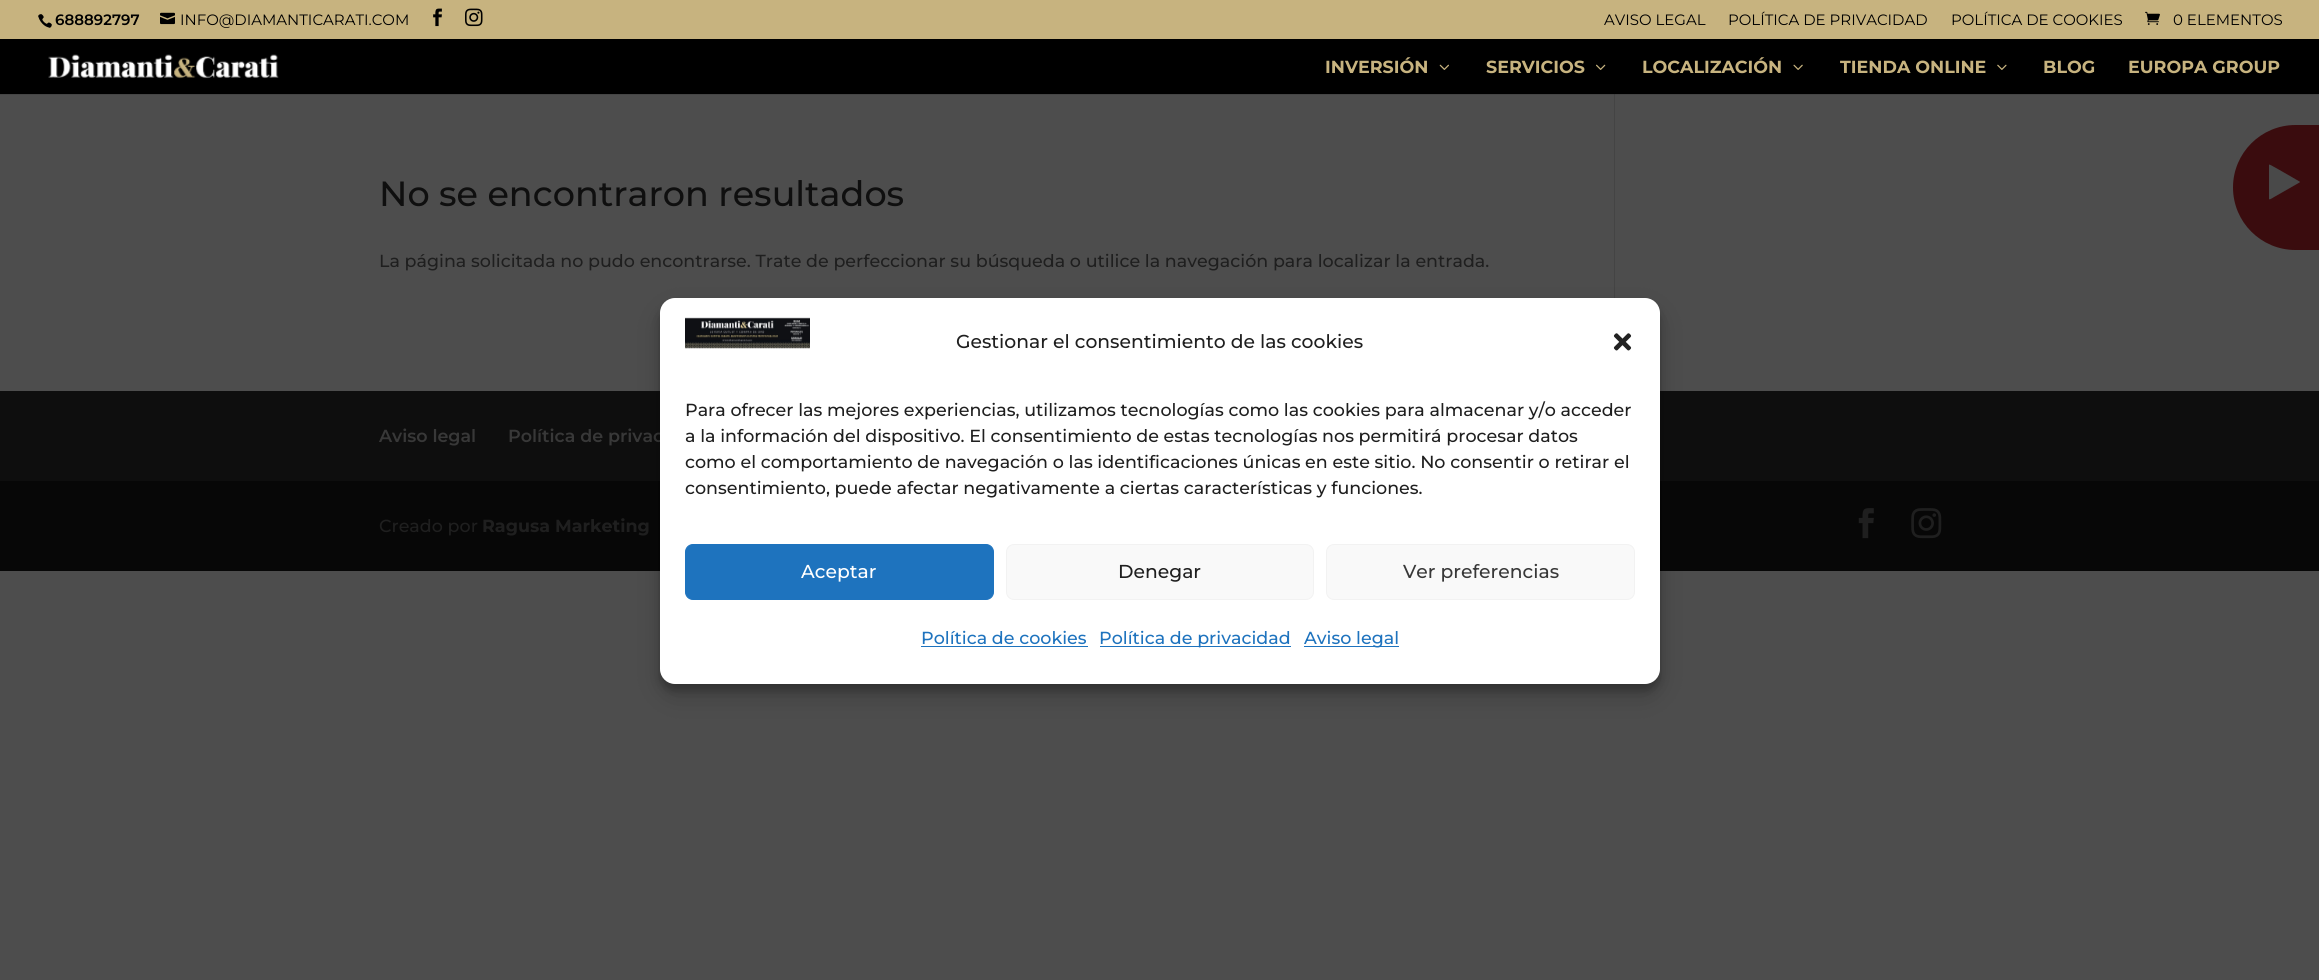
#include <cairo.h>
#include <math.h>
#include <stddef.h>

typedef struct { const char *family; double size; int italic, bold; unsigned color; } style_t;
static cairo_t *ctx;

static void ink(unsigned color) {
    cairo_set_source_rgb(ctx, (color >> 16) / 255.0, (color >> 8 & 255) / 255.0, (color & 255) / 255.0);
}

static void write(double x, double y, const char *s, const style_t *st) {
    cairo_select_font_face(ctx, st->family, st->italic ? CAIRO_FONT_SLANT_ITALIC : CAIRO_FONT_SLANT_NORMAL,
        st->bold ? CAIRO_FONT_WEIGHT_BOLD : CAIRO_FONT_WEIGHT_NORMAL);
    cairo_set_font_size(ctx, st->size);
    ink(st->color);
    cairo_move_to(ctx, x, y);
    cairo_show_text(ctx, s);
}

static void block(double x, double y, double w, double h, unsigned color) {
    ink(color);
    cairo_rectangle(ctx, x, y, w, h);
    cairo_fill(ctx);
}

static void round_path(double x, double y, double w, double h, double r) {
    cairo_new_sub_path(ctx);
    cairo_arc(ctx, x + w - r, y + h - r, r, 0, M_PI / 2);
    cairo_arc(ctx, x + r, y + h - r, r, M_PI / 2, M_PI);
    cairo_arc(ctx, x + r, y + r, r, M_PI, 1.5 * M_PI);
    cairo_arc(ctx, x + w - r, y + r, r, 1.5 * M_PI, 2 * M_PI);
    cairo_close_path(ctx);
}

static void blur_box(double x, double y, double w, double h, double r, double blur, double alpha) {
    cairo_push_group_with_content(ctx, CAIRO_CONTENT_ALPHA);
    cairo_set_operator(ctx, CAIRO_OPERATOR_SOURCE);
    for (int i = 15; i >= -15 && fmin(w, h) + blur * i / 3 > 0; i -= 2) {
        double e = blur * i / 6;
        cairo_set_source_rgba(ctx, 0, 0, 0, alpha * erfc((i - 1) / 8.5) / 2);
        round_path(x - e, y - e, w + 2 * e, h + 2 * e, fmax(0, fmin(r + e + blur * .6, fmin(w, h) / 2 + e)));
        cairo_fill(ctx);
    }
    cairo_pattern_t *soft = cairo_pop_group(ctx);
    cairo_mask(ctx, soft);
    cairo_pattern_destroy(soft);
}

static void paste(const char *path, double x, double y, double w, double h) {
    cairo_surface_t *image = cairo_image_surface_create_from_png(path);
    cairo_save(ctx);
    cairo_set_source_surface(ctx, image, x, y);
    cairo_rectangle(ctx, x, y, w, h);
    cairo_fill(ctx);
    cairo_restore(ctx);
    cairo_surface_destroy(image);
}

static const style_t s1 = {"Montserrat SemiBold", 15, 0, 0, 0x000000};
static const style_t s2 = {"Montserrat", 15, 0, 0, 0x000000};
static const style_t s3 = {"Montserrat", 17.5, 0, 1, 0xc7b37f};
static const style_t s4 = {"Montserrat Medium", 35, 0, 0, 0x0f0f0f};
static const style_t s5 = {"Montserrat Medium", 17.5, 0, 0, 0x1f1f1f};
static const style_t s6 = {"Montserrat SemiBold", 17.5, 0, 0, 0x383838};
static const style_t s7 = {"Montserrat", 17.5, 0, 1, 0x1f1f1f};
static const style_t s8 = {"Montserrat Medium", 18.75, 0, 0, 0x1f1f1f};
static const style_t s9 = {"Montserrat Medium", 18.75, 0, 0, 0xffffff};
static const style_t s10 = {"Montserrat Medium", 18.75, 0, 0, 0x383838};
static const style_t s11 = {"Montserrat Medium", 17.5, 0, 0, 0x1e73be};

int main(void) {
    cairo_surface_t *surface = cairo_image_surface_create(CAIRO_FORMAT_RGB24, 2319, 980);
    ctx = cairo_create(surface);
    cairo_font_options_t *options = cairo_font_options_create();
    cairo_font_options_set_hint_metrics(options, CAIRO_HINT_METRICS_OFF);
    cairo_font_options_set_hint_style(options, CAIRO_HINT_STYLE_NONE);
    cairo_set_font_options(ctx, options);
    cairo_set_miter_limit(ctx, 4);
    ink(0x4d4d4d);
    cairo_paint(ctx);
    block(0, 94, 2319, 1, 0x454545);
    block(0, 0, 2319, 39, 0xc7b37f);
    paste("pic1.png", 38, 14, 14, 14);
    write(55, 25, "688892797", &s1);
    paste("pic2.png", 160, 12, 15, 13);
    write(180, 25, "INFO@DIAMANTICARATI.COM", &s2);
    paste("pic3.png", 433, 8, 9, 19);
    paste("pic4.png", 465, 8, 18, 19);
    write(1604, 25, "AVISO LEGAL", &s2);
    write(1728, 25, "POLÍTICA DE PRIVACIDAD", &s2);
    write(1951, 25, "POLÍTICA DE COOKIES", &s2);
    paste("pic5.png", 2145, 11, 15, 14);
    write(2173, 25, "0 ELEMENTOS", &s2);
    block(0, 39, 2319, 55, 0x000000);
    paste("pic6.png", 48, 54, 231, 25);
    write(1325, 73, "INVERSIÓN", &s3);
    paste("pic7.png", 1439, 64, 10, 6);
    write(1486, 73, "SERVICIOS", &s3);
    paste("pic8.png", 1596, 64, 10, 6);
    write(1642, 73, "LOCALIZACIÓN", &s3);
    paste("pic9.png", 1793, 64, 10, 6);
    write(1840, 73, "TIENDA ONLINE", &s3);
    paste("pic10.png", 1997, 64, 10, 6);
    write(2043, 73, "BLOG", &s3);
    write(2128, 73, "EUROPA GROUP", &s3);
    write(379, 206, "No se encontraron resultados", &s4);
    write(379, 267, "La página solicitada no pudo encontrarse. Trate de perfeccionar su búsqueda o utilice la navegación para localizar la entrada.", &s5);
    block(1614, 94, 1, 204, 0x444444);
    block(1614, 94, 1, 1, 0x3d3d3d);
    block(0, 391, 2319, 90, 0x0e0e0e);
    write(379, 442, "Aviso legal", &s6);
    write(508, 442, "Política de privac", &s6);
    block(0, 481, 2319, 90, 0x070707);
    write(379, 532, "Creado por", &s5);
    write(482, 532, "Ragusa Marketing", &s7);
    paste("pic11.png", 1858, 508, 16, 31);
    paste("pic12.png", 1911, 508, 31, 31);
    ink(0x3a0c0e);
    cairo_new_path(ctx);
    cairo_move_to(ctx, 2295.5, 125);
    cairo_line_to(ctx, 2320, 125);
    cairo_line_to(ctx, 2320, 250);
    cairo_line_to(ctx, 2295.5, 250);
    cairo_curve_to(ctx, 2261, 250, 2233, 222, 2233, 187.5);
    cairo_curve_to(ctx, 2233, 153, 2261, 125, 2295.5, 125);
    cairo_close_path(ctx);
    cairo_fill(ctx);
    ink(0x494949);
    cairo_new_path(ctx);
    cairo_move_to(ctx, 2299.5, 182.5);
    cairo_line_to(ctx, 2275, 196.5);
    cairo_curve_to(ctx, 2274.5, 196.5, 2269.5, 200.5, 2269, 199);
    cairo_line_to(ctx, 2269, 165);
    cairo_line_to(ctx, 2269.5, 164.5);
    cairo_curve_to(ctx, 2270, 164.5, 2287.5, 174.5, 2290, 176);
    cairo_line_to(ctx, 2299.5, 181.5);
    cairo_line_to(ctx, 2300, 182);
    cairo_close_path(ctx);
    cairo_fill(ctx);
    ink(0x000000);
    blur_box(660, 305, 1000, 386, 15, 4, 0.23);
    blur_box(660, 310, 1000, 386, 15, 12.5, 0.19);
    ink(0xffffff);
    round_path(660, 298, 1000, 386, 15);
    cairo_fill(ctx);
    paste("pic13.png", 685, 317, 125, 32);
    write(956, 348, "Gestionar el consentimiento de las cookies", &s8);
    paste("pic14.png", 1613, 333, 19, 18);
    write(685, 416, "Para ofrecer las mejores experiencias, utilizamos tecnologías como las cookies para almacenar y/o acceder", &s5);
    write(685, 442, "a la información del dispositivo. El consentimiento de estas tecnologías nos permitirá procesar datos", &s5);
    write(685, 468, "como el comportamiento de navegación o las identificaciones únicas en este sitio. No consentir o retirar el", &s5);
    write(685, 494, "consentimiento, puede afectar negativamente a ciertas características y funciones.", &s5);
    ink(0x1e73be);
    round_path(685.5, 544.5, 308, 55, 7.5);
    cairo_fill_preserve(ctx);
    cairo_set_line_width(ctx, 1);
    cairo_stroke(ctx);
    write(801, 578, "Aceptar", &s9);
    ink(0xf9f9f9);
    round_path(1006.5, 544.5, 307, 55, 7.5);
    cairo_fill_preserve(ctx);
    ink(0xf2f2f2);
    cairo_stroke(ctx);
    write(1118, 578, "Denegar", &s8);
    ink(0xf9f9f9);
    round_path(1326.5, 544.5, 308, 55, 7.5);
    cairo_fill_preserve(ctx);
    ink(0xf2f2f2);
    cairo_stroke(ctx);
    write(1403, 578, "Ver preferencias", &s10);
    write(921, 644, "Política de cookies", &s11);
    block(921, 646, 167, 1, 0x1e73be);
    block(1100, 646, 191, 1, 0x1e73be);
    write(1099, 644, "Política de privacidad", &s11);
    block(1304, 646, 95, 1, 0x1e73be);
    write(1304, 644, "Aviso legal", &s11);
    cairo_surface_write_to_png(surface, "screenshot.png");
    cairo_font_options_destroy(options);
    cairo_destroy(ctx);
    cairo_surface_destroy(surface);
    return 0;
}
